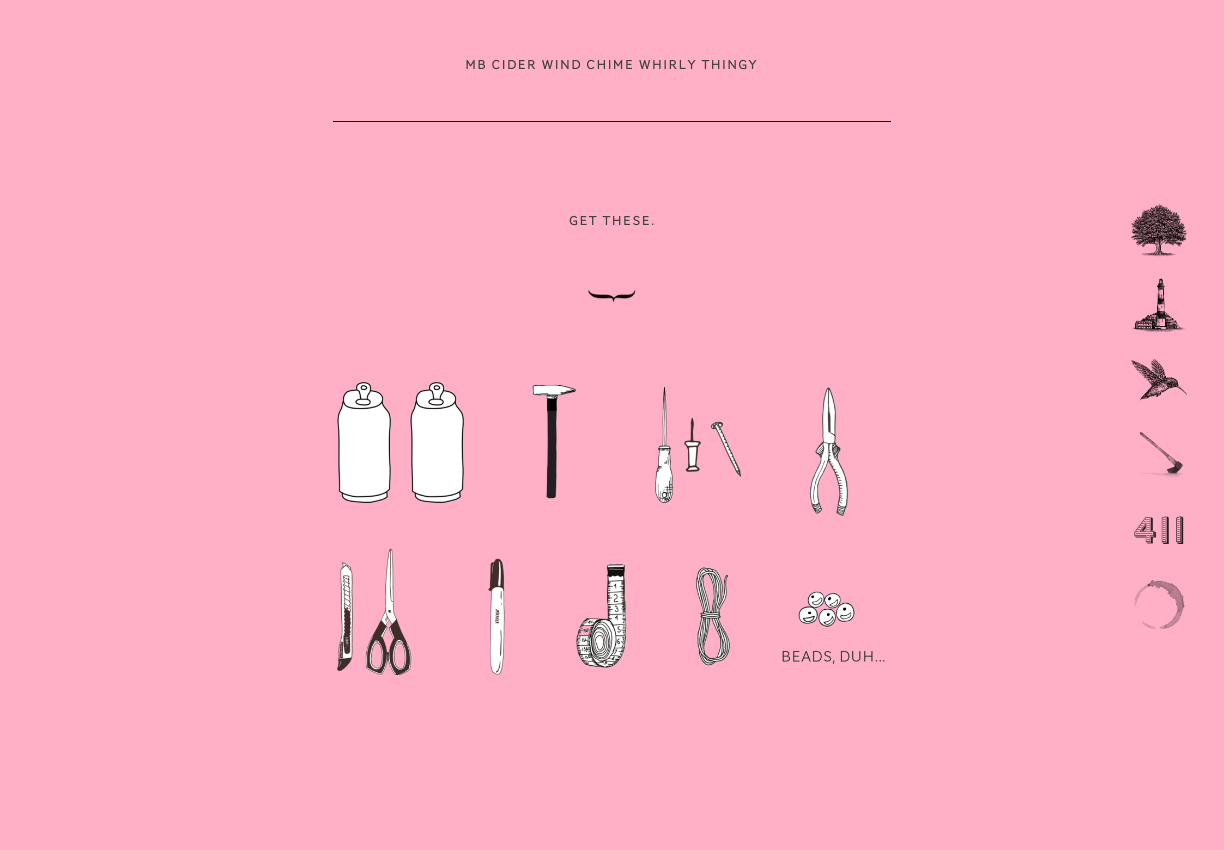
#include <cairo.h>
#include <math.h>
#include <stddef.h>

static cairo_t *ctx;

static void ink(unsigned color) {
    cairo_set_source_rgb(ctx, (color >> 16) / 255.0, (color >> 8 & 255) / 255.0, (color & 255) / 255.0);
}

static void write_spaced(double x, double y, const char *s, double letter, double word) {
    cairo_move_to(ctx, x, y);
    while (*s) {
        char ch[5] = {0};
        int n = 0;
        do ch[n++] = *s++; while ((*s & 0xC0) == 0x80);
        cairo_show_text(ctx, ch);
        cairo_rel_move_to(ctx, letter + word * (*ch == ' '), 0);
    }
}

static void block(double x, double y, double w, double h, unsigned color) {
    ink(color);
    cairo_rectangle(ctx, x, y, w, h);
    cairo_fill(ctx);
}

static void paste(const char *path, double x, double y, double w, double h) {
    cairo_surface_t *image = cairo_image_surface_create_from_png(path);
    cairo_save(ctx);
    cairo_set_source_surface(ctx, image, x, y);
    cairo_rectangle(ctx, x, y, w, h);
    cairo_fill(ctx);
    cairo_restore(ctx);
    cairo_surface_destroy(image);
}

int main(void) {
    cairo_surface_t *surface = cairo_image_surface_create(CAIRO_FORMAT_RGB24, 1224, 850);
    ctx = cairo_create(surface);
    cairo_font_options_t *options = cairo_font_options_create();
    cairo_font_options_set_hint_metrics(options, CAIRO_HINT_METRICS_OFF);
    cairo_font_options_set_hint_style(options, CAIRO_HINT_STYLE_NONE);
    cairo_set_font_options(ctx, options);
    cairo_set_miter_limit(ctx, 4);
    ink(0xffb0c6);
    cairo_paint(ctx);
    cairo_select_font_face(ctx, "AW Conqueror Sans", CAIRO_FONT_SLANT_NORMAL, CAIRO_FONT_WEIGHT_BOLD);
    cairo_set_font_size(ctx, 12.8);
    ink(0x404040);
    write_spaced(465, 69, "MB CIDER WIND CHIME WHIRLY THINGY", 1.25, 0);
    block(333, 121, 558, 1, 0x000000);
    ink(0x404040);
    write_spaced(569, 225, "GET THESE.", 1.25, 0);
    paste("pic1.png", 588, 290, 48, 13);
    paste("pic2.png", 337, 382, 548, 293);
    paste("pic3.png", 1131, 204, 57, 53);
    paste("pic4.png", 1132, 278, 53, 55);
    paste("pic5.png", 1131, 359, 56, 42);
    paste("pic6.png", 1139, 432, 46, 46);
    paste("pic7.png", 1134, 516, 50, 28);
    paste("pic8.png", 1134, 579, 52, 51);
    cairo_surface_write_to_png(surface, "screenshot.png");
    cairo_font_options_destroy(options);
    cairo_destroy(ctx);
    cairo_surface_destroy(surface);
    return 0;
}
